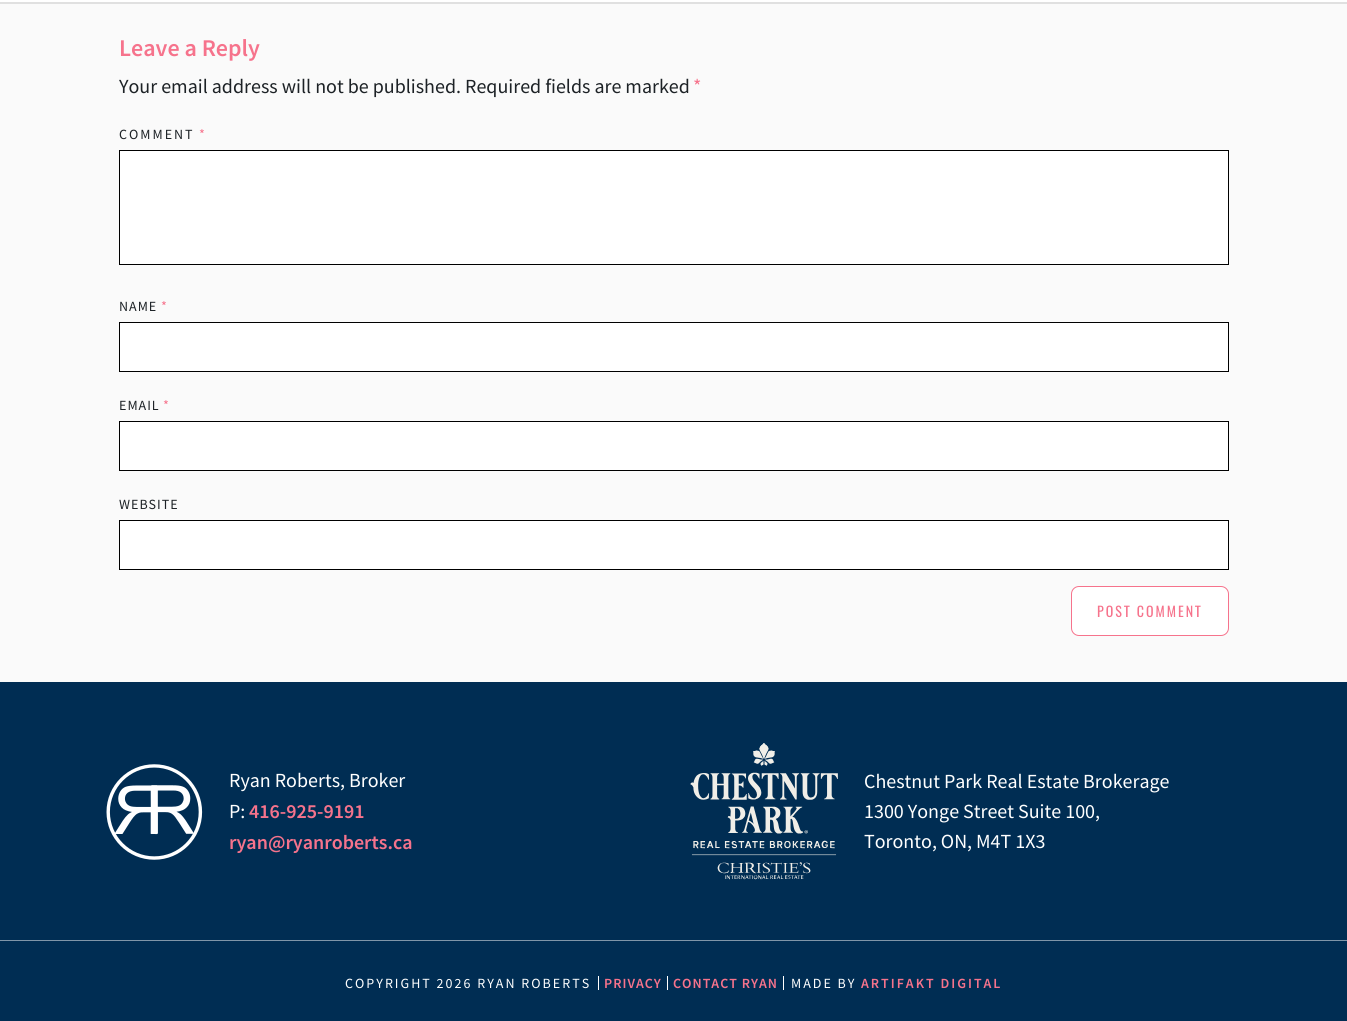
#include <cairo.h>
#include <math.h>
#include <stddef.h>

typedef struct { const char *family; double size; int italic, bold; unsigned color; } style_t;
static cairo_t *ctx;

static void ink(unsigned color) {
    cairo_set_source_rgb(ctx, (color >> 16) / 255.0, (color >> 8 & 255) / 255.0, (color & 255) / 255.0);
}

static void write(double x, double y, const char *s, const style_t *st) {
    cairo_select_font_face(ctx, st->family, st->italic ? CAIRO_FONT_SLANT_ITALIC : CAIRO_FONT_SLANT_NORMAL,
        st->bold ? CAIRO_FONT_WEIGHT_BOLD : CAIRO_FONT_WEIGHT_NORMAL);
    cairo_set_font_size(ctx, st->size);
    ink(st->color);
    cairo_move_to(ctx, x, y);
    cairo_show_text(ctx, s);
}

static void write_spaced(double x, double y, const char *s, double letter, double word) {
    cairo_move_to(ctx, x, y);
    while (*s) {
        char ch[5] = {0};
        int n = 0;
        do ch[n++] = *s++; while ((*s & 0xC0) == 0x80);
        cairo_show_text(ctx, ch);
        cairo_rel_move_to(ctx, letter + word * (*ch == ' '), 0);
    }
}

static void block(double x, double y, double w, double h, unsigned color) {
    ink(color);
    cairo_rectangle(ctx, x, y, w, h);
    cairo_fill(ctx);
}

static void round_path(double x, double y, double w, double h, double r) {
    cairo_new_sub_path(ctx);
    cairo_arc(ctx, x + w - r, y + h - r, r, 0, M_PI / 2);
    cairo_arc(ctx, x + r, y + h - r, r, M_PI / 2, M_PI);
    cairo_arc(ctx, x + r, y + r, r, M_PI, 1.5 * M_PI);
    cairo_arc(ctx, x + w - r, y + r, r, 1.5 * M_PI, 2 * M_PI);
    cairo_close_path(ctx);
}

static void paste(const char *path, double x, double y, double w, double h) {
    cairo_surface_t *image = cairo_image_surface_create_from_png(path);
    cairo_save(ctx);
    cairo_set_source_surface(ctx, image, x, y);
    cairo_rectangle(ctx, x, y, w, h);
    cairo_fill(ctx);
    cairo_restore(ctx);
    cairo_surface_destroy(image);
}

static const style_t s1 = {"Source Sans Pro SemiBold", 24, 0, 0, 0xf6738c};
static const style_t s2 = {"Source Sans Pro", 20, 0, 0, 0x1d2226};
static const style_t s3 = {"Source Sans Pro", 20, 0, 0, 0xf6738c};
static const style_t s4 = {"Source Sans Pro", 20, 0, 0, 0xffffff};
static const style_t s5 = {"Source Sans Pro SemiBold", 20, 0, 0, 0xf6738c};

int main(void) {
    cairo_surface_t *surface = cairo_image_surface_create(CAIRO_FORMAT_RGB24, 1347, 1021);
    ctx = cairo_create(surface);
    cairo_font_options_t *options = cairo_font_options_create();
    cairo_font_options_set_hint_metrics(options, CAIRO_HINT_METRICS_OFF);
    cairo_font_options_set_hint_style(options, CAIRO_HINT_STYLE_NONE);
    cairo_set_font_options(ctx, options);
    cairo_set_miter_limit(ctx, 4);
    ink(0xffffff);
    cairo_paint(ctx);
    block(0, 4, 1347, 678, 0xfafafa);
    block(0, 2, 1347, 2, 0xe0e0e0);
    write(119, 56, "Leave a Reply", &s1);
    write(119, 93, "Your email address will not be published. Required fields are marked", &s2);
    write(693, 93, "*", &s3);
    cairo_set_font_size(ctx, 14);
    ink(0x1d2226);
    write_spaced(119, 139, "COMMENT", 2, 0);
    ink(0xf6738c);
    write_spaced(199, 139, "*", 2, 0);
    ink(0xffffff);
    cairo_rectangle(ctx, 119.5, 150.5, 1109, 114);
    cairo_fill_preserve(ctx);
    ink(0x000000);
    cairo_set_line_width(ctx, 1);
    cairo_stroke(ctx);
    ink(0x1d2226);
    write_spaced(119, 311, "NAME", 1, 0);
    ink(0xf6738c);
    write_spaced(161, 311, "*", 1, 0);
    ink(0xffffff);
    cairo_rectangle(ctx, 119.5, 322.5, 1109, 49);
    cairo_fill_preserve(ctx);
    ink(0x000000);
    cairo_stroke(ctx);
    ink(0x1d2226);
    write_spaced(119, 410, "EMAIL", 1, 0);
    ink(0xf6738c);
    write_spaced(163, 410, "*", 1, 0);
    ink(0xffffff);
    cairo_rectangle(ctx, 119.5, 421.5, 1109, 49);
    cairo_fill_preserve(ctx);
    ink(0x000000);
    cairo_stroke(ctx);
    ink(0x1d2226);
    write_spaced(119, 509, "WEBSITE", 1, 0);
    ink(0xffffff);
    cairo_rectangle(ctx, 119.5, 520.5, 1109, 49);
    cairo_fill_preserve(ctx);
    ink(0x000000);
    cairo_stroke(ctx);
    ink(0xffffff);
    round_path(1071.5, 586.5, 157, 49, 7.5);
    cairo_fill_preserve(ctx);
    ink(0xf6738c);
    cairo_stroke(ctx);
    cairo_select_font_face(ctx, "Oswald", CAIRO_FONT_SLANT_NORMAL, CAIRO_FONT_WEIGHT_NORMAL);
    write_spaced(1097, 617, "POST COMMENT", 2, 0);
    block(0, 682, 1347, 339, 0x002d53);
    paste("pic1.png", 106, 764, 97, 96);
    write(229, 787, "Ryan Roberts, Broker", &s4);
    write(229, 818, "P:", &s4);
    write(249, 818, "416-925-9191", &s5);
    write(229, 849, "ryan@ryanroberts.ca", &s5);
    paste("pic2.png", 690, 743, 148, 137);
    write(864, 788, "Chestnut Park Real Estate Brokerage", &s4);
    write(864, 818, "1300 Yonge Street Suite 100,", &s4);
    write(864, 848, "Toronto, ON, M4T 1X3", &s4);
    block(0, 940, 1347, 1, 0x8096a9);
    cairo_set_font_size(ctx, 14);
    ink(0xffffff);
    write_spaced(345, 988, "COPYRIGHT 2026 RYAN ROBERTS", 2, 0);
    block(667, 976, 1, 14, 0xffffff);
    block(598, 976, 1, 14, 0xffffff);
    cairo_select_font_face(ctx, "Source Sans Pro SemiBold", CAIRO_FONT_SLANT_NORMAL, CAIRO_FONT_WEIGHT_NORMAL);
    ink(0xf6738c);
    write_spaced(604, 988, "PRIVACY", 1, 0);
    block(783, 976, 1, 14, 0xffffff);
    ink(0xf6738c);
    write_spaced(673, 988, "CONTACT RYAN", 1, 0);
    cairo_select_font_face(ctx, "Source Sans Pro", CAIRO_FONT_SLANT_NORMAL, CAIRO_FONT_WEIGHT_NORMAL);
    ink(0xffffff);
    write_spaced(791, 988, "MADE BY", 2, 0);
    cairo_select_font_face(ctx, "Source Sans Pro SemiBold", CAIRO_FONT_SLANT_NORMAL, CAIRO_FONT_WEIGHT_NORMAL);
    ink(0xf6738c);
    write_spaced(861, 988, "ARTIFAKT DIGITAL", 2, 0);
    cairo_surface_write_to_png(surface, "screenshot.png");
    cairo_font_options_destroy(options);
    cairo_destroy(ctx);
    cairo_surface_destroy(surface);
    return 0;
}
